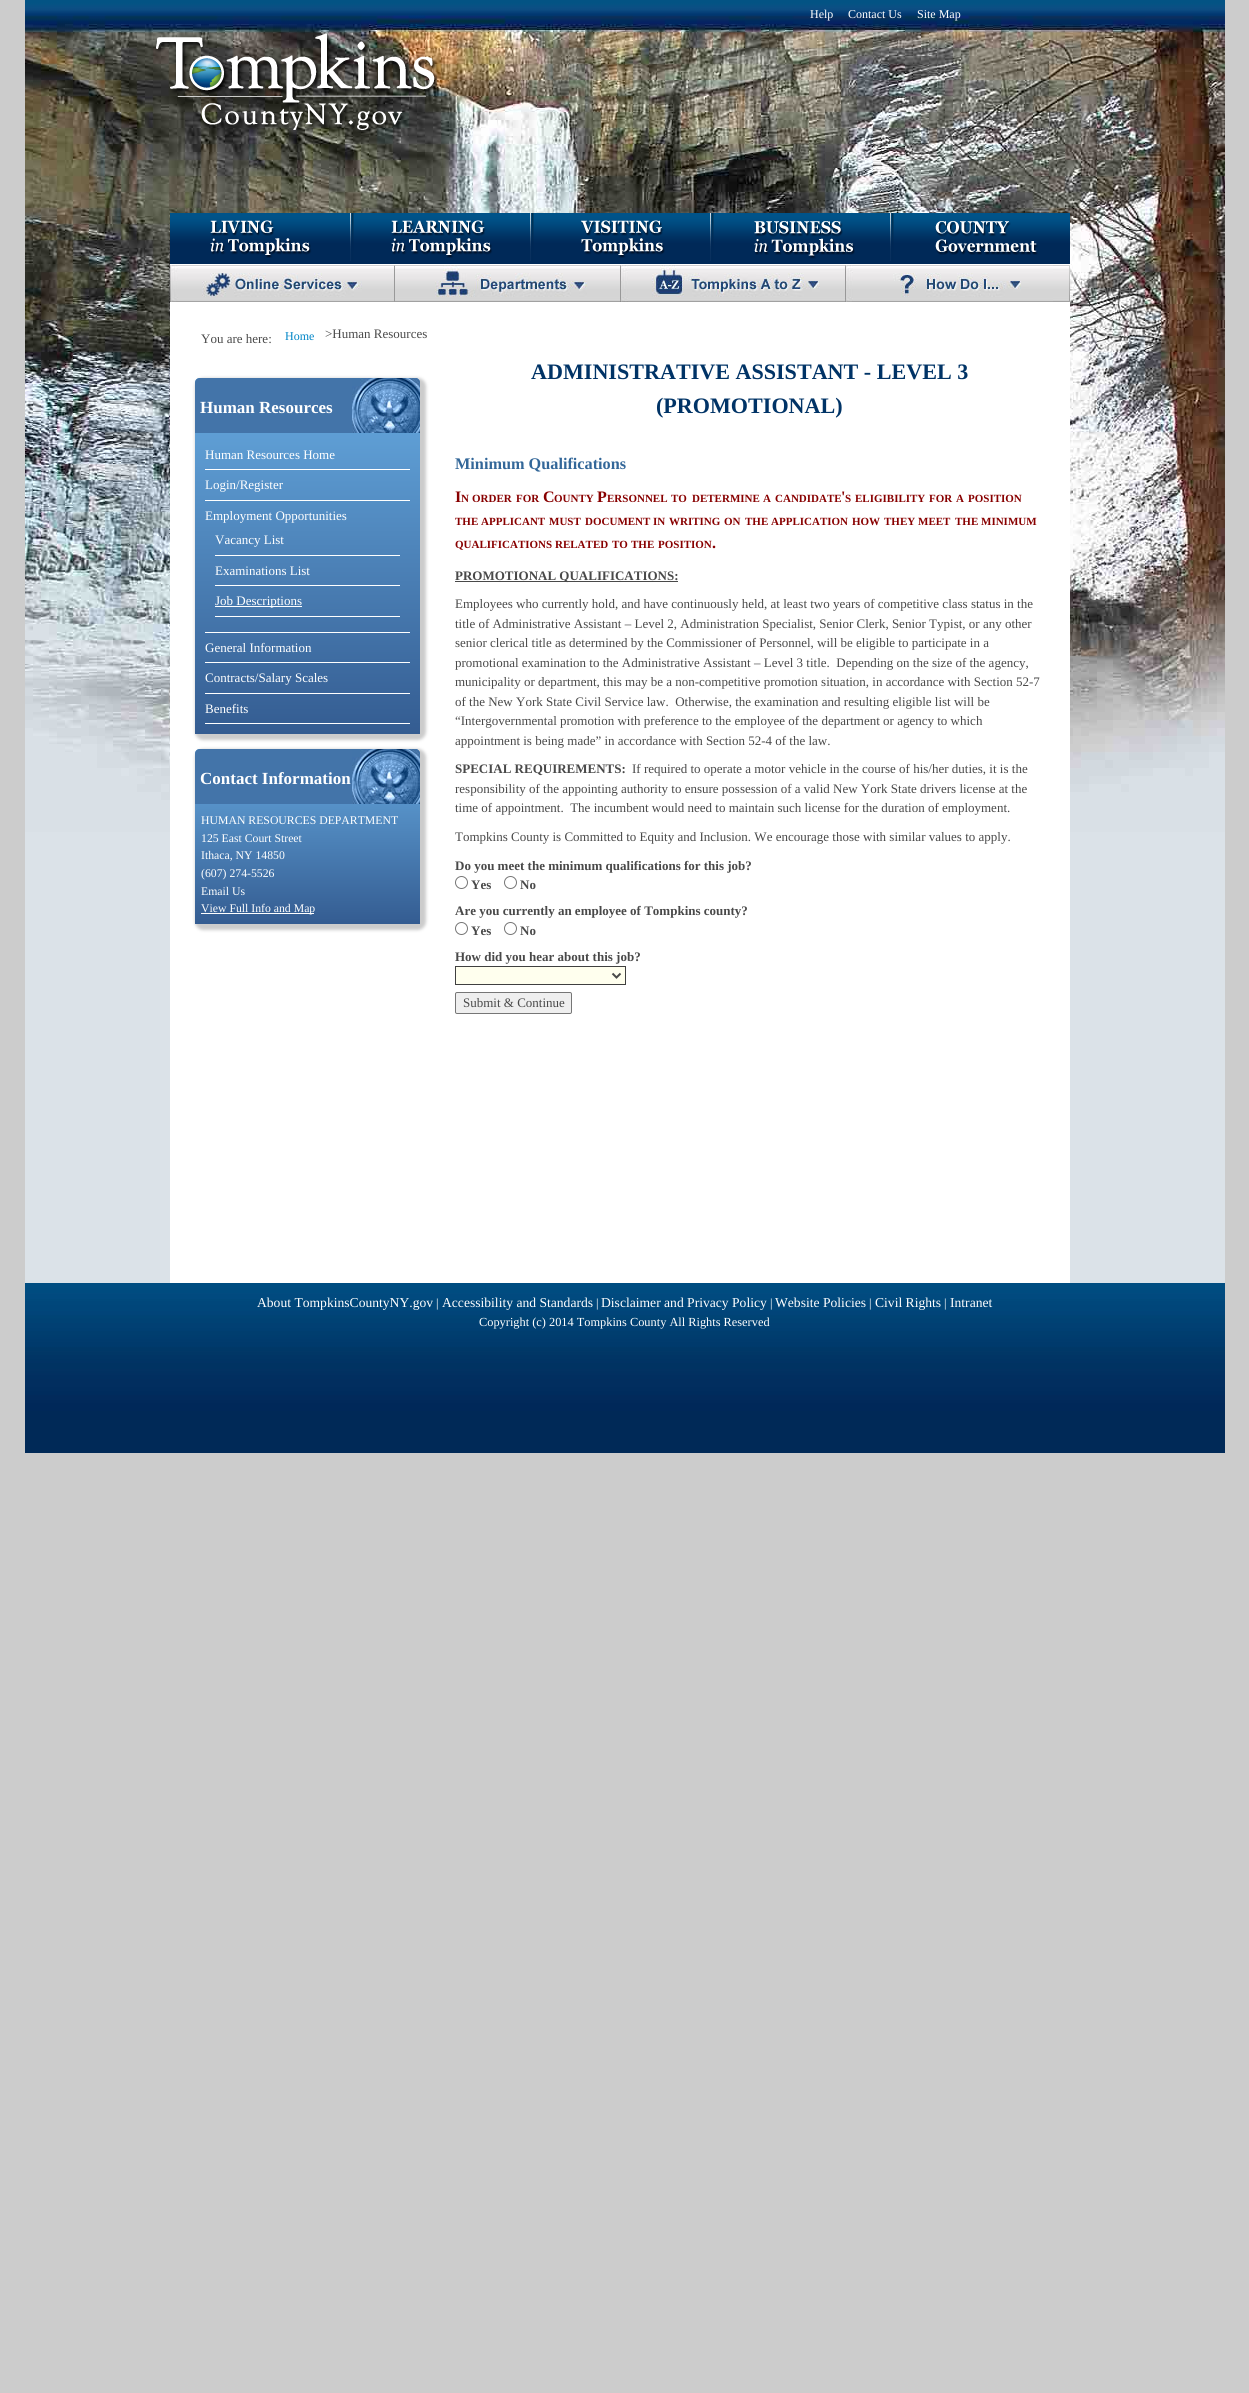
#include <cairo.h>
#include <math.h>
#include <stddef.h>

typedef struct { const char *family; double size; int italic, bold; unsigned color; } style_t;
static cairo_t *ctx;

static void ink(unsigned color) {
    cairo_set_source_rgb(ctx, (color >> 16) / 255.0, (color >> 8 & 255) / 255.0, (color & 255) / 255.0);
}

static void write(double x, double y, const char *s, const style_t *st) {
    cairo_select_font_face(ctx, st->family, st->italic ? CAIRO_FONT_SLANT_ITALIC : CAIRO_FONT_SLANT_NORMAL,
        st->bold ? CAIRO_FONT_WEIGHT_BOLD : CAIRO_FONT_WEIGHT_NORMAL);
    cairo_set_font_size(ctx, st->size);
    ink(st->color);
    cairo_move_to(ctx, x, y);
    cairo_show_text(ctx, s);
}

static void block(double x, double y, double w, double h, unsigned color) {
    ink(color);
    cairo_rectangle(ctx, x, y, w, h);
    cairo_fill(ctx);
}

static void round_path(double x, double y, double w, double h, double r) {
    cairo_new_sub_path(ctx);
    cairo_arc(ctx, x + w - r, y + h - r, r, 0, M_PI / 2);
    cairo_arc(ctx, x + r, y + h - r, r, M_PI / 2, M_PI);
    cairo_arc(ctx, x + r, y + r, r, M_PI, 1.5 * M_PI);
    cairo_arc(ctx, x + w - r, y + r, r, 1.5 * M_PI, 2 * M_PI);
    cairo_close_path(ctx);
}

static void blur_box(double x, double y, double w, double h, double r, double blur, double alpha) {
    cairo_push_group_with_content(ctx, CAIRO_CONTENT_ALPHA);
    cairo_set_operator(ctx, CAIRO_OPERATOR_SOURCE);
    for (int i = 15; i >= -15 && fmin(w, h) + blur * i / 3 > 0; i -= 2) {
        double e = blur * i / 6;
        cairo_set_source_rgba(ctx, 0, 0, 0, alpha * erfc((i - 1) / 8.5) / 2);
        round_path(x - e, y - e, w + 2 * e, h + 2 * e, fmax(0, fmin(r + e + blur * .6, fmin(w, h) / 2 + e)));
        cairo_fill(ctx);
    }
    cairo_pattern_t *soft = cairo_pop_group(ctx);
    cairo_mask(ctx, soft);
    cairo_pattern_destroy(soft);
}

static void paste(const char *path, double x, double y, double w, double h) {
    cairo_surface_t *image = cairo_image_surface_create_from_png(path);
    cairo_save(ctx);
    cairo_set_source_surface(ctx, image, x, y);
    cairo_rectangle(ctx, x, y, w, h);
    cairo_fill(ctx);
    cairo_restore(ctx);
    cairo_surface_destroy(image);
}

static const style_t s1 = {"Liberation Serif", 12, 0, 0, 0xffffff};
static const style_t s2 = {"Liberation Serif", 13, 0, 0, 0x494949};
static const style_t s3 = {"Liberation Serif", 12, 0, 0, 0x0085c7};
static const style_t s4 = {"Liberation Serif", 17, 0, 1, 0xffffff};
static const style_t s5 = {"Liberation Serif", 13, 0, 0, 0xffffff};
static const style_t s6 = {"Liberation Serif", 11.75, 0, 0, 0xffffff};
static const style_t s7 = {"Liberation Serif", 22.1, 0, 1, 0x003366};
static const style_t s8 = {"Liberation Serif", 16.25, 0, 1, 0x336799};
static const style_t s9 = {"Liberation Serif", 16, 0, 1, 0x880000};
static const style_t s10 = {"Liberation Serif", 11, 0, 1, 0x880000};
static const style_t s11 = {"Liberation Serif", 13, 0, 1, 0x494949};
static const style_t s12 = {"Liberation Serif", 13.6, 0, 0, 0xffffff};
static const style_t s13 = {"Liberation Serif", 12.35, 0, 0, 0xffffff};

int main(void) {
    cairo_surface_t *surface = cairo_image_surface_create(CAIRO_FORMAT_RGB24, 1249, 2393);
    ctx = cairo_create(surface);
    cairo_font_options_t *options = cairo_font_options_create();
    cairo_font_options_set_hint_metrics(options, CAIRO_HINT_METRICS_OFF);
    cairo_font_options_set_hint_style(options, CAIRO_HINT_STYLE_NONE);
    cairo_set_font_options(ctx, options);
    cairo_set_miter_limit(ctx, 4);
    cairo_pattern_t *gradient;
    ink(0xcccccc);
    cairo_paint(ctx);
    block(25, 832, 1200, 451, 0xdbe2e8);
    paste("pic1.png", 25, 0, 1200, 832);
    write(810, 18, "Help", &s1);
    write(848, 18, "Contact Us", &s1);
    write(917, 18, "Site Map", &s1);
    paste("pic2.png", 155, 33, 282, 100);
    block(170, 264, 900, 1019, 0xffffff);
    paste("pic3.png", 170, 213, 180, 51);
    paste("pic4.png", 350, 213, 180, 51);
    paste("pic5.png", 530, 213, 180, 51);
    paste("pic6.png", 710, 213, 180, 51);
    paste("pic7.png", 890, 213, 180, 51);
    paste("pic8.png", 170, 265, 225, 37);
    paste("pic9.png", 395, 265, 225, 37);
    paste("pic10.png", 620, 265, 225, 37);
    paste("pic11.png", 845, 265, 225, 37);
    write(201, 343, "You are here:", &s2);
    write(285, 340, "Home", &s3);
    write(325, 338, ">Human Resources", &s2);
    ink(0xcccccc);
    blur_box(195, 378, 231, 362, 8, 1.5, 1);
    gradient = cairo_pattern_create_linear(308, 378, 308, 734);
    cairo_pattern_add_color_stop_rgba(gradient, 0, 0.4, 0.667, 0.882, 1);
    cairo_pattern_add_color_stop_rgba(gradient, 1, 0.204, 0.361, 0.569, 1);
    cairo_pattern_add_color_stop_rgba(gradient, 1, 0.118, 0.341, 0.6, 1);
    cairo_set_source(ctx, gradient);
    cairo_pattern_destroy(gradient);
    cairo_new_path(ctx);
    cairo_move_to(ctx, 200, 378);
    cairo_line_to(ctx, 415, 378);
    cairo_curve_to(ctx, 418, 378, 420, 380, 420, 383);
    cairo_line_to(ctx, 420, 734);
    cairo_line_to(ctx, 195, 734);
    cairo_line_to(ctx, 195, 383);
    cairo_curve_to(ctx, 195, 380, 197, 378, 200, 378);
    cairo_close_path(ctx);
    cairo_fill(ctx);
    ink(0x4374a9);
    cairo_new_path(ctx);
    cairo_move_to(ctx, 200, 378);
    cairo_line_to(ctx, 415, 378);
    cairo_curve_to(ctx, 418, 378, 420, 380, 420, 383);
    cairo_line_to(ctx, 420, 433);
    cairo_line_to(ctx, 195, 433);
    cairo_line_to(ctx, 195, 383);
    cairo_curve_to(ctx, 195, 380, 197, 378, 200, 378);
    cairo_close_path(ctx);
    cairo_fill(ctx);
    paste("pic12.png", 352, 378, 68, 55);
    write(200, 413, "Human Resources", &s4);
    block(205, 469, 205, 1, 0xffffff);
    write(205, 459, "Human Resources Home", &s5);
    block(205, 500, 205, 1, 0xffffff);
    write(205, 489, "Login/Register", &s5);
    block(205, 632, 205, 1, 0xffffff);
    write(205, 520, "Employment Opportunities", &s5);
    block(215, 555, 185, 1, 0xffffff);
    write(215, 544, "Vacancy List", &s5);
    block(215, 585, 185, 1, 0xffffff);
    write(215, 575, "Examinations List", &s5);
    block(215, 616, 185, 1, 0xffffff);
    block(215, 606, 87, 1, 0xffffff);
    write(215, 605, "Job Descriptions", &s5);
    block(205, 662, 205, 1, 0xffffff);
    write(205, 652, "General Information", &s5);
    block(205, 693, 205, 1, 0xffffff);
    write(205, 682, "Contracts/Salary Scales", &s5);
    block(205, 723, 205, 1, 0xffffff);
    write(205, 713, "Benefits", &s5);
    ink(0xcccccc);
    blur_box(195, 749, 231, 181, 8, 1.5, 1);
    gradient = cairo_pattern_create_linear(308, 749, 308, 924);
    cairo_pattern_add_color_stop_rgba(gradient, 0, 0.4, 0.667, 0.882, 1);
    cairo_pattern_add_color_stop_rgba(gradient, 1, 0.204, 0.361, 0.569, 1);
    cairo_pattern_add_color_stop_rgba(gradient, 1, 0.118, 0.341, 0.6, 1);
    cairo_set_source(ctx, gradient);
    cairo_pattern_destroy(gradient);
    cairo_new_path(ctx);
    cairo_move_to(ctx, 200, 749);
    cairo_line_to(ctx, 415, 749);
    cairo_curve_to(ctx, 418, 749, 420, 751, 420, 754);
    cairo_line_to(ctx, 420, 924);
    cairo_line_to(ctx, 195, 924);
    cairo_line_to(ctx, 195, 754);
    cairo_curve_to(ctx, 195, 751, 197, 749, 200, 749);
    cairo_close_path(ctx);
    cairo_fill(ctx);
    ink(0x4374a9);
    cairo_new_path(ctx);
    cairo_move_to(ctx, 200, 749);
    cairo_line_to(ctx, 415, 749);
    cairo_curve_to(ctx, 418, 749, 420, 751, 420, 754);
    cairo_line_to(ctx, 420, 804);
    cairo_line_to(ctx, 195, 804);
    cairo_line_to(ctx, 195, 754);
    cairo_curve_to(ctx, 195, 751, 197, 749, 200, 749);
    cairo_close_path(ctx);
    cairo_fill(ctx);
    paste("pic12.png", 352, 749, 68, 55);
    write(200, 784, "Contact Information", &s4);
    write(201, 824, "HUMAN RESOURCES DEPARTMENT", &s6);
    write(201, 842, "125 East Court Street", &s6);
    write(201, 859, "Ithaca, NY 14850", &s6);
    write(201, 877, "(607) 274-5526", &s6);
    write(201, 895, "Email Us", &s6);
    block(201, 913, 113, 1, 0xffffff);
    write(201, 912, "View Full Info and Map", &s6);
    write(531, 379, "ADMINISTRATIVE ASSISTANT - LEVEL 3", &s7);
    write(656, 413, "(PROMOTIONAL)", &s7);
    write(455, 469, "Minimum Qualifications", &s8);
    write(455, 502, "I", &s9);
    write(543, 502, "C", &s9);
    write(597, 502, "P", &s9);
    write(841, 502, "'", &s9);
    write(461, 502, "N", &s10);
    write(472, 502, "ORDER", &s10);
    write(516, 502, "FOR", &s10);
    write(554, 502, "OUNTY", &s10);
    write(607, 502, "ERSONNEL", &s10);
    write(671, 502, "TO", &s10);
    write(692, 502, "DETERMINE", &s10);
    write(763, 502, "A", &s10);
    write(775, 502, "CANDIDATE", &s10);
    write(845, 502, "S", &s10);
    write(855, 502, "ELIGIBILITY", &s10);
    write(929, 502, "FOR", &s10);
    write(956, 502, "A", &s10);
    write(968, 502, "POSITION", &s10);
    write(455, 525, "THE", &s10);
    write(481, 525, "APPLICANT", &s10);
    write(549, 525, "MUST", &s10);
    write(585, 525, "DOCUMENT", &s10);
    write(653, 525, "IN", &s10);
    write(669, 525, "WRITING", &s10);
    write(724, 525, "ON", &s10);
    write(745, 525, "THE", &s10);
    write(771, 525, "APPLICATION", &s10);
    write(852, 525, "HOW", &s10);
    write(884, 525, "THEY", &s10);
    write(918, 525, "MEET", &s10);
    write(955, 525, "THE", &s10);
    write(981, 525, "MINIMUM", &s10);
    write(455, 548, "QUALIFICATIONS", &s10);
    write(555, 548, "RELATED", &s10);
    write(612, 548, "TO", &s10);
    write(631, 548, "THE", &s10);
    write(658, 548, "POSITION", &s10);
    write(712, 548, ".", &s9);
    block(455, 581, 223, 1, 0x494949);
    write(455, 580, "PROMOTIONAL QUALIFICATIONS:", &s11);
    write(455, 608, "Employees who currently hold, and have continuously held, at least two years of competitive class status in the", &s2);
    write(455, 628, "title of Administrative Assistant – Level 2, Administration Specialist, Senior Clerk, Senior Typist, or any other", &s2);
    write(455, 647, "senior clerical title as determined by the Commissioner of Personnel, will be eligible to participate in a", &s2);
    write(455, 667, "promotional examination to the Administrative Assistant – Level 3 title.  Depending on the size of the agency,", &s2);
    write(455, 686, "municipality or department, this may be a non-competitive promotion situation, in accordance with Section 52-7", &s2);
    write(455, 706, "of the New York State Civil Service law.  Otherwise, the examination and resulting eligible list will be", &s2);
    write(455, 725, "“Intergovernmental promotion with preference to the employee of the department or agency to which", &s2);
    write(455, 745, "appointment is being made” in accordance with Section 52-4 of the law.", &s2);
    write(455, 773, "SPECIAL REQUIREMENTS:", &s11);
    write(632, 773, "If required to operate a motor vehicle in the course of his/her duties, it is the", &s2);
    write(455, 793, "responsibility of the appointing authority to ensure possession of a valid New York State drivers license at the", &s2);
    write(455, 812, "time of appointment.  The incumbent would need to maintain such license for the duration of employment.", &s2);
    write(455, 841, "Tompkins County is Committed to Equity and Inclusion. We encourage those with similar values to apply.", &s2);
    write(455, 870, "Do you meet the minimum qualifications for this job?", &s11);
    cairo_new_path(ctx);
    cairo_arc(ctx, 461.5, 882.5, 6, 0, 2 * M_PI);
    ink(0x767676);
    cairo_set_line_width(ctx, 1);
    cairo_stroke(ctx);
    write(471, 889, "Yes", &s11);
    cairo_new_path(ctx);
    cairo_arc(ctx, 510.5, 882.5, 6, 0, 2 * M_PI);
    ink(0x767676);
    cairo_stroke(ctx);
    write(520, 889, "No", &s11);
    write(455, 915, "Are you currently an employee of Tompkins county?", &s11);
    cairo_new_path(ctx);
    cairo_arc(ctx, 461.5, 928.5, 6, 0, 2 * M_PI);
    ink(0x767676);
    cairo_stroke(ctx);
    write(471, 935, "Yes", &s11);
    cairo_new_path(ctx);
    cairo_arc(ctx, 510.5, 928.5, 6, 0, 2 * M_PI);
    ink(0x767676);
    cairo_stroke(ctx);
    write(520, 935, "No", &s11);
    write(455, 961, "How did you hear about this job?", &s11);
    ink(0xffffee);
    cairo_rectangle(ctx, 455.5, 966.5, 170, 18);
    cairo_fill_preserve(ctx);
    ink(0x404040);
    cairo_stroke(ctx);
    cairo_new_path(ctx);
    cairo_move_to(ctx, 612.5, 973.5);
    cairo_line_to(ctx, 616.5, 977.5);
    cairo_line_to(ctx, 620.5, 973.5);
    ink(0x494949);
    cairo_set_line_width(ctx, 2);
    cairo_stroke(ctx);
    ink(0xefefef);
    round_path(455.5, 992.5, 116, 21, 1.5);
    cairo_fill_preserve(ctx);
    ink(0x767676);
    cairo_set_line_width(ctx, 1);
    cairo_stroke(ctx);
    write(463, 1007, "Submit & Continue", &s2);
    paste("pic13.png", 25, 1283, 1200, 170);
    write(257, 1307, "About TompkinsCountyNY.gov", &s12);
    write(436, 1307, "|", &s13);
    write(442, 1307, "Accessibility and Standards", &s12);
    write(596, 1307, "|", &s13);
    write(601, 1307, "Disclaimer and Privacy Policy", &s12);
    write(770, 1307, "|", &s13);
    write(775, 1307, "Website Policies", &s12);
    write(869, 1307, "|", &s13);
    write(875, 1307, "Civil Rights", &s12);
    write(944, 1307, "|", &s13);
    write(950, 1307, "Intranet", &s12);
    write(479, 1326, "Copyright (c) 2014 Tompkins County All Rights Reserved", &s13);
    cairo_surface_write_to_png(surface, "screenshot.png");
    cairo_font_options_destroy(options);
    cairo_destroy(ctx);
    cairo_surface_destroy(surface);
    return 0;
}
